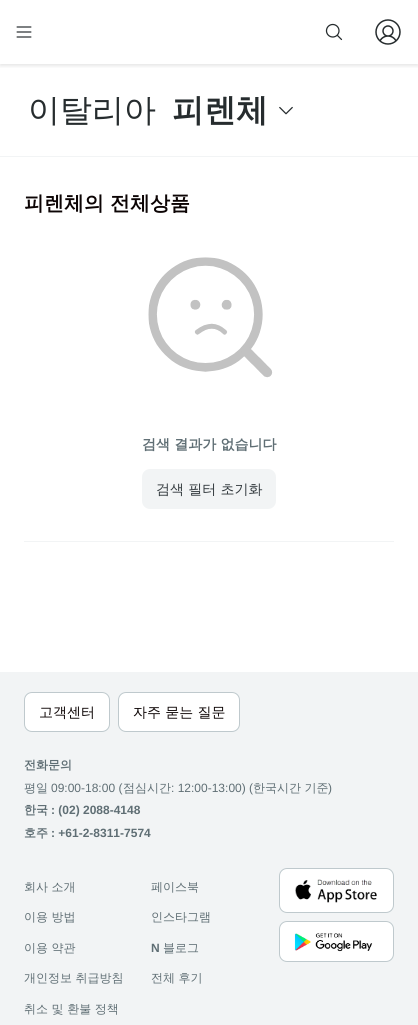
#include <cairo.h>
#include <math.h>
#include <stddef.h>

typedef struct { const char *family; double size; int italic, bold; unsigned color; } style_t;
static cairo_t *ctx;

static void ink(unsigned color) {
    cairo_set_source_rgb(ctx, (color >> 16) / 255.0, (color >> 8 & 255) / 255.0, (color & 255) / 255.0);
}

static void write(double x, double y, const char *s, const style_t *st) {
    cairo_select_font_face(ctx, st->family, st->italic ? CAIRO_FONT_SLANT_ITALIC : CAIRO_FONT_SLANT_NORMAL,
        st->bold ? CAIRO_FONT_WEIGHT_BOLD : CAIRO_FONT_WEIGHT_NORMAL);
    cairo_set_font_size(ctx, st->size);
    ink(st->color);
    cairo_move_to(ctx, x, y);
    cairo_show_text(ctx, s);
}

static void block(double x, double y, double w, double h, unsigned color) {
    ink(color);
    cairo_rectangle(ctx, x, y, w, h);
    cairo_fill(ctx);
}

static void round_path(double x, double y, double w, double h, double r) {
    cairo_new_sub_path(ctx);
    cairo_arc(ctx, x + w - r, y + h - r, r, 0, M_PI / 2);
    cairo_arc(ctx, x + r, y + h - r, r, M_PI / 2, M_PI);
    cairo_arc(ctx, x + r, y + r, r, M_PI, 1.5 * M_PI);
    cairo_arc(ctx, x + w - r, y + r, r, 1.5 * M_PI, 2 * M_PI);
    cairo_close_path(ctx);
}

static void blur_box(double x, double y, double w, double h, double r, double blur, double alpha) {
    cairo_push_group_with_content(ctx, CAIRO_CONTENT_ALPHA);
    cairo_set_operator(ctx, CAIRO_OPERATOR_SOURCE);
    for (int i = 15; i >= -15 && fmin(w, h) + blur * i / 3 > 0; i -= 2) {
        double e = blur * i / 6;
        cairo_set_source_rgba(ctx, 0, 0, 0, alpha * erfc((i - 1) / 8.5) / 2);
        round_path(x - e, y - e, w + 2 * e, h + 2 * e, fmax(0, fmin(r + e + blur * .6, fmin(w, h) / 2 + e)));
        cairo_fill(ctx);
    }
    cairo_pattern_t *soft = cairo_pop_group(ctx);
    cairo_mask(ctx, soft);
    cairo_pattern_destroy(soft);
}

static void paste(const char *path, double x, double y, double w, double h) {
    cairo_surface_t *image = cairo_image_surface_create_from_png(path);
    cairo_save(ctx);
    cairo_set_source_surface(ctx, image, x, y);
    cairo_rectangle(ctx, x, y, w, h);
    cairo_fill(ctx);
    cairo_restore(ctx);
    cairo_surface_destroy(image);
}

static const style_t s1 = {"WenQuanYi Zen Hei Medium", 32, 0, 0, 0x262c2e};
static const style_t s2 = {"WenQuanYi Zen Hei", 32, 0, 1, 0x262c2e};
static const style_t s3 = {"WenQuanYi Zen Hei", 20, 0, 1, 0x0c0404};
static const style_t s4 = {"WenQuanYi Zen Hei", 14, 0, 1, 0x5f6e74};
static const style_t s5 = {"WenQuanYi Zen Hei Medium", 14, 0, 0, 0x333a3e};
static const style_t s6 = {"WenQuanYi Zen Hei Medium", 14, 0, 0, 0x0c0404};
static const style_t s7 = {"WenQuanYi Zen Hei", 12, 0, 1, 0x5f6e74};
static const style_t s8 = {"WenQuanYi Zen Hei Medium", 12, 0, 0, 0x5f6e74};
static const style_t s9 = {"Liberation Sans", 12, 0, 0, 0x5f6e74};
static const style_t s10 = {"Liberation Sans", 12, 0, 1, 0x5f6e74};

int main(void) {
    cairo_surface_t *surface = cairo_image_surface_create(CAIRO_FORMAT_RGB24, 418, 1025);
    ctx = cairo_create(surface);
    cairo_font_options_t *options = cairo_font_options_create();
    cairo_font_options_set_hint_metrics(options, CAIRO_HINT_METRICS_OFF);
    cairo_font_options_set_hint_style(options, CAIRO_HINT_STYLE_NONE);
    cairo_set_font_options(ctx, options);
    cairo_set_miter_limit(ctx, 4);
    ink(0xffffff);
    cairo_paint(ctx);
    cairo_save(ctx);
    cairo_rectangle(ctx, 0, 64, 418, 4);
    cairo_clip(ctx);
    ink(0x000000);
    blur_box(0, 2, 418, 64, 0, 2, 0.1);
    cairo_restore(ctx);
    paste("pic1.png", 16, 26, 16, 12);
    paste("pic2.png", 325, 23, 18, 18);
    paste("pic3.png", 375, 19, 26, 26);
    block(0, 156, 418, 1, 0xf2f4f5);
    write(28, 121, "이탈리아", &s1);
    write(172, 121, "피렌체", &s2);
    paste("pic4.png", 279, 106, 14, 9);
    block(24, 541, 370, 1, 0xf2f4f5);
    write(24, 210, "피렌체의 전체상품", &s3);
    paste("pic5.png", 148, 257, 125, 121);
    write(142, 449, "검색 결과가 없습니다", &s4);
    ink(0xf2f4f5);
    round_path(142, 469, 134, 40, 8);
    cairo_fill(ctx);
    write(156, 494, "검색 필터 초기화", &s5);
    block(0, 672, 418, 353, 0xf2f4f5);
    ink(0xffffff);
    round_path(24.5, 692.5, 85, 39, 7.5);
    cairo_fill_preserve(ctx);
    ink(0xbfc9cd);
    cairo_set_line_width(ctx, 1);
    cairo_stroke(ctx);
    write(39, 717, "고객센터", &s6);
    ink(0xffffff);
    round_path(118.5, 692.5, 121, 39, 7.5);
    cairo_fill_preserve(ctx);
    ink(0xbfc9cd);
    cairo_stroke(ctx);
    write(133, 717, "자주 묻는 질문", &s6);
    write(24, 769, "전화문의", &s7);
    write(24, 792, "평일", &s8);
    write(51, 792, "09:00-18:00 (", &s9);
    write(123, 792, "점심시간", &s8);
    write(171, 792, ": 12:00-13:00) (", &s9);
    write(253, 792, "한국시간 기준", &s8);
    write(328, 792, ")", &s9);
    write(24, 814, "한국", &s7);
    write(51, 814, ": (02) 2088-4148", &s10);
    write(24, 837, "호주", &s7);
    write(51, 837, ": +61-2-8311-7574", &s10);
    write(24, 891, "회사 소개", &s8);
    write(24, 921, "이용 방법", &s8);
    write(24, 952, "이용 약관", &s8);
    write(24, 982, "개인정보 취급방침", &s8);
    write(24, 1013, "취소 및 환불 정책", &s8);
    write(151, 891, "페이스북", &s8);
    write(151, 921, "인스타그램", &s8);
    write(151, 952, "N", &s10);
    write(163, 952, "블로그", &s8);
    write(151, 982, "전체 후기", &s8);
    ink(0xffffff);
    round_path(279.5, 868.5, 114, 44, 7.5);
    cairo_fill_preserve(ctx);
    ink(0xbfc9cd);
    cairo_stroke(ctx);
    paste("pic6.png", 295, 879, 82, 24);
    ink(0xffffff);
    round_path(279.5, 921.5, 114, 40, 7.5);
    cairo_fill_preserve(ctx);
    ink(0xbfc9cd);
    cairo_stroke(ctx);
    paste("pic7.png", 294, 933, 79, 19);
    cairo_surface_write_to_png(surface, "screenshot.png");
    cairo_font_options_destroy(options);
    cairo_destroy(ctx);
    cairo_surface_destroy(surface);
    return 0;
}
